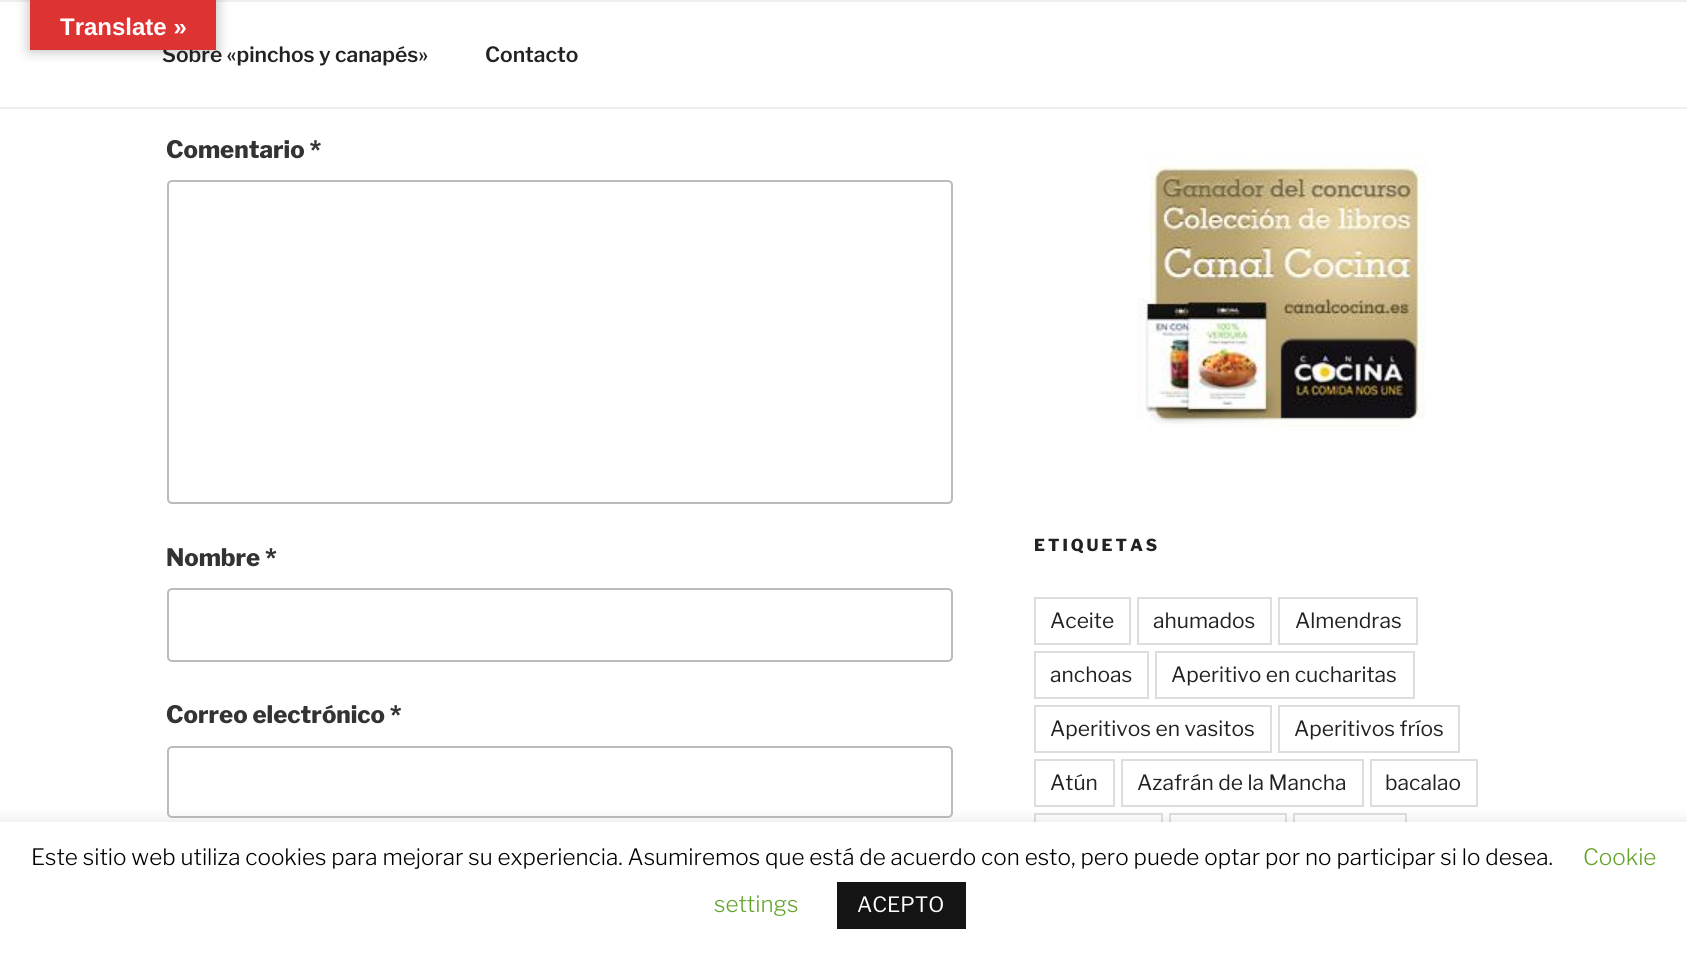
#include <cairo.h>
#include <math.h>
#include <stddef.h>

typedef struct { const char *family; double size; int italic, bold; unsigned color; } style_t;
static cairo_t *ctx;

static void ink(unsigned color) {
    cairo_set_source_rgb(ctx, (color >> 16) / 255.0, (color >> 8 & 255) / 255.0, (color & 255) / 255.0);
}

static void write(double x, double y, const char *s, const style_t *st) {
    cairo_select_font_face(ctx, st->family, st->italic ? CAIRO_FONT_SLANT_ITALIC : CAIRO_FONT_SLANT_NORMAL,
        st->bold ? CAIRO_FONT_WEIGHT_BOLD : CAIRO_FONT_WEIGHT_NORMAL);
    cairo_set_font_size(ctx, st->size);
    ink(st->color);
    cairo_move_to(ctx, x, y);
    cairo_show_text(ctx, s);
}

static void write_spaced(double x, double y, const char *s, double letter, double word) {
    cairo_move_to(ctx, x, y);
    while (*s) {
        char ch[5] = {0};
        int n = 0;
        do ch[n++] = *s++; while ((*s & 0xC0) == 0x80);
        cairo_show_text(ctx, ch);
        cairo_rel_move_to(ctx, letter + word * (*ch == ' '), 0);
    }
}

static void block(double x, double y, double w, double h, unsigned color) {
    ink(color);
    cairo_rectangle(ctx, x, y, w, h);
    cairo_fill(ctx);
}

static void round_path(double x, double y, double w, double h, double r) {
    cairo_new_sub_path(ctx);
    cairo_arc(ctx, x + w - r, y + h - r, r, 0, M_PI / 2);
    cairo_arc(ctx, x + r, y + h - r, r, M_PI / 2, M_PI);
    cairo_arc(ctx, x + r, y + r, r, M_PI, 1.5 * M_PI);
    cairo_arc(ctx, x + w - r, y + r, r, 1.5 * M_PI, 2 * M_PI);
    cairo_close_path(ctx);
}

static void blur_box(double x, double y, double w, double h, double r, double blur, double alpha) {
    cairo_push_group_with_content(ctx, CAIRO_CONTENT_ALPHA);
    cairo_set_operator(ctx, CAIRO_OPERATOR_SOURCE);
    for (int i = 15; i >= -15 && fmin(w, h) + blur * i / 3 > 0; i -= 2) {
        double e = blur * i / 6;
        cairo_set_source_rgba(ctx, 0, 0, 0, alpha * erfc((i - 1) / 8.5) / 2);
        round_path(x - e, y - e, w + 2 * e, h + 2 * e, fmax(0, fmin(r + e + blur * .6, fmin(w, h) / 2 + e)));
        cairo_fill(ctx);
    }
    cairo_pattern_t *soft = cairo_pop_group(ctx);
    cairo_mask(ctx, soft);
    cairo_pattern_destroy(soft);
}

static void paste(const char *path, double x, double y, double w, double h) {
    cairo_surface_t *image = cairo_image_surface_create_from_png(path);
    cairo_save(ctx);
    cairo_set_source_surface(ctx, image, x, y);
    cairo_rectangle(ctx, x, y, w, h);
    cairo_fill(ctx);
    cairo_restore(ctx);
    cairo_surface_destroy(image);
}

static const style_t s1 = {"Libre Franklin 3 Thin", 21, 0, 0, 0x222222};
static const style_t s2 = {"Liberation Sans", 24, 0, 1, 0xffffff};
static const style_t s3 = {"Libre Franklin Thin", 24, 0, 0, 0x333333};
static const style_t s4 = {"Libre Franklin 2 Thin", 21, 0, 0, 0x222222};
static const style_t s5 = {"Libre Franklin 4 Thin", 22.5, 0, 0, 0x000000};
static const style_t s6 = {"Libre Franklin 4 Thin", 22.5, 0, 0, 0x62a329};
static const style_t s7 = {"Libre Franklin 2 Thin", 21, 0, 0, 0xffffff};

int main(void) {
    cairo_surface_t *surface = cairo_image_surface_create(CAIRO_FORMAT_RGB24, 1687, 953);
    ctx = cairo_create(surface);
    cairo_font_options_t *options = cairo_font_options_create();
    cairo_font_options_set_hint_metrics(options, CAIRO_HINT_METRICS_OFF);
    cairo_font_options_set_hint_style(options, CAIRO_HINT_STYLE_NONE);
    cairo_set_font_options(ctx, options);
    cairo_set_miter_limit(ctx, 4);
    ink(0xffffff);
    cairo_paint(ctx);
    block(0, 0, 1687, 2, 0xeeeeee);
    ink(0x000000);
    blur_box(30, 0, 186, 50, 0, 7, 0.3);
    write(162, 62, "Sobre «pinchos y canapés»", &s1);
    block(30, 0, 186, 50, 0xdd3333);
    write(60, 35, "Translate »", &s2);
    block(0, 107, 1687, 2, 0xeeeeee);
    write(485, 62, "Contacto", &s1);
    write(166, 158, "Comentario *", &s3);
    round_path(168, 181, 784, 322, 4);
    ink(0xbbbbbb);
    cairo_stroke(ctx);
    write(166, 566, "Nombre *", &s3);
    round_path(168, 589, 784, 72, 4);
    ink(0xbbbbbb);
    cairo_stroke(ctx);
    write(166, 723, "Correo electrónico *", &s3);
    round_path(168, 747, 784, 70, 4);
    ink(0xbbbbbb);
    cairo_stroke(ctx);
    paste("pic1.png", 1137, 154, 289, 276);
    cairo_set_font_size(ctx, 16.5);
    ink(0x222222);
    write_spaced(1034, 551, "ETIQUETAS", 3, 0);
    cairo_rectangle(ctx, 1035, 598, 95, 46);
    ink(0xdddddd);
    cairo_stroke(ctx);
    write(1050, 628, "Aceite", &s4);
    cairo_rectangle(ctx, 1138, 598, 133, 46);
    ink(0xdddddd);
    cairo_stroke(ctx);
    write(1153, 628, "ahumados", &s4);
    cairo_rectangle(ctx, 1279, 598, 138, 46);
    ink(0xdddddd);
    cairo_stroke(ctx);
    write(1295, 628, "Almendras", &s4);
    cairo_rectangle(ctx, 1035, 652, 113, 46);
    ink(0xdddddd);
    cairo_stroke(ctx);
    write(1050, 682, "anchoas", &s4);
    cairo_rectangle(ctx, 1156, 652, 258, 46);
    ink(0xdddddd);
    cairo_stroke(ctx);
    write(1171, 682, "Aperitivo en cucharitas", &s4);
    cairo_rectangle(ctx, 1035, 706, 236, 46);
    ink(0xdddddd);
    cairo_stroke(ctx);
    write(1050, 736, "Aperitivos en vasitos", &s4);
    cairo_rectangle(ctx, 1279, 706, 180, 46);
    ink(0xdddddd);
    cairo_stroke(ctx);
    write(1294, 736, "Aperitivos fríos", &s4);
    cairo_rectangle(ctx, 1035, 760, 79, 46);
    ink(0xdddddd);
    cairo_stroke(ctx);
    write(1050, 790, "Atún", &s4);
    cairo_rectangle(ctx, 1122, 760, 241, 46);
    ink(0xdddddd);
    cairo_stroke(ctx);
    write(1137, 790, "Azafrán de la Mancha", &s4);
    cairo_rectangle(ctx, 1371, 760, 106, 46);
    ink(0xdddddd);
    cairo_stroke(ctx);
    write(1385, 790, "bacalao", &s4);
    cairo_rectangle(ctx, 1035, 814, 127, 46);
    ink(0xdddddd);
    cairo_stroke(ctx);
    cairo_rectangle(ctx, 1170, 814, 116, 46);
    cairo_stroke(ctx);
    cairo_rectangle(ctx, 1294, 814, 112, 46);
    cairo_stroke(ctx);
    ink(0xacabab);
    blur_box(0, 821, 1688, 132, 0, 7.5, 0.3);
    block(0, 822, 1687, 131, 0xffffff);
    write(31, 865, "Este sitio web utiliza cookies para mejorar su experiencia. Asumiremos que está de acuerdo con esto, pero puede optar por no participar si lo desea.", &s5);
    write(1583, 865, "Cookie", &s6);
    write(714, 912, "settings", &s6);
    block(837, 882, 129, 47, 0x141414);
    write(857, 912, "ACEPTO", &s7);
    cairo_surface_write_to_png(surface, "screenshot.png");
    cairo_font_options_destroy(options);
    cairo_destroy(ctx);
    cairo_surface_destroy(surface);
    return 0;
}
